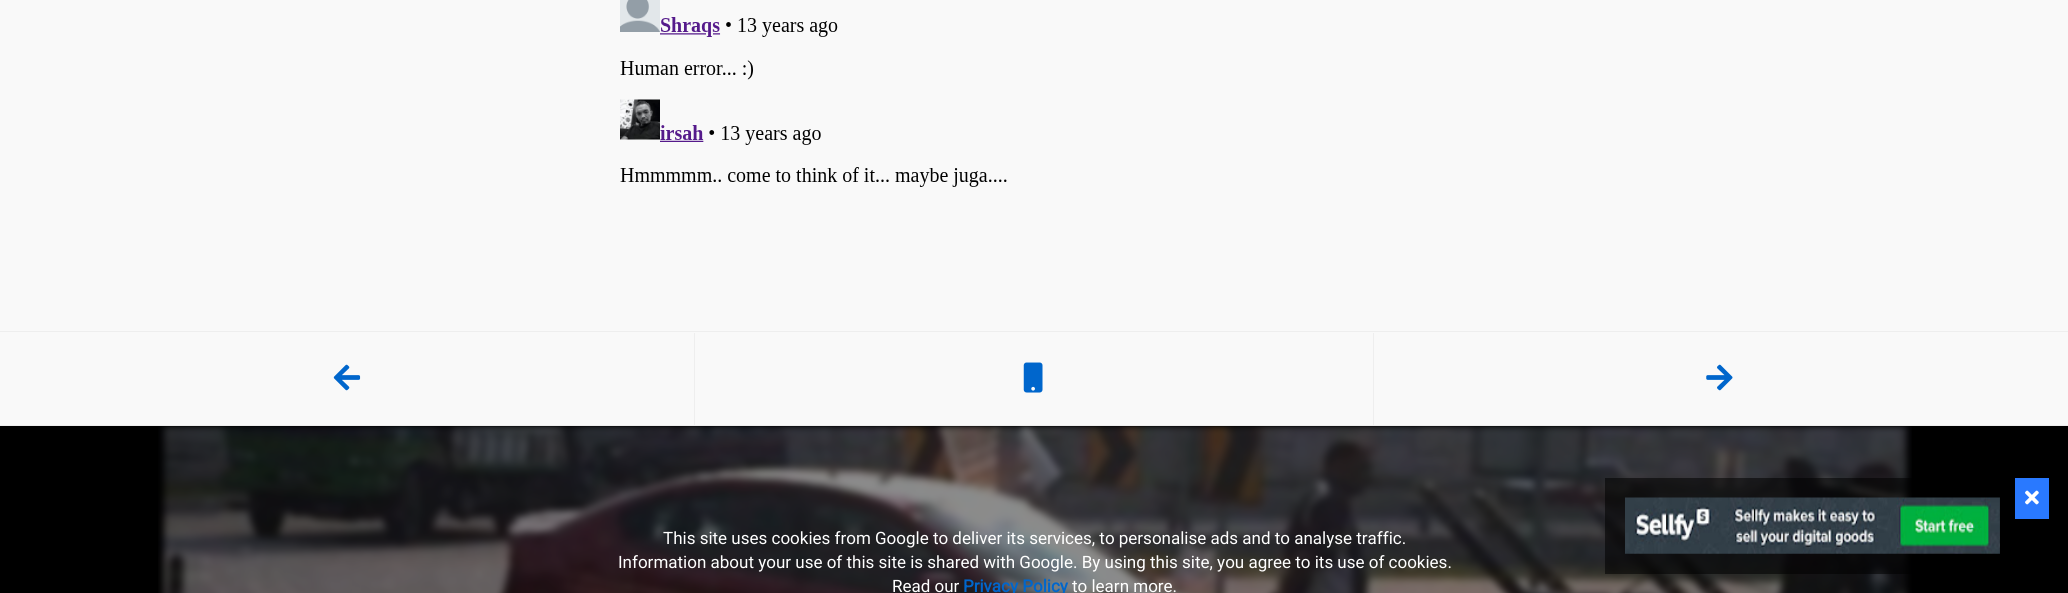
#include <cairo.h>
#include <math.h>
#include <stddef.h>

typedef struct { const char *family; double size; int italic, bold; unsigned color; } style_t;
static cairo_t *ctx;

static void ink(unsigned color) {
    cairo_set_source_rgb(ctx, (color >> 16) / 255.0, (color >> 8 & 255) / 255.0, (color & 255) / 255.0);
}

static void write(double x, double y, const char *s, const style_t *st) {
    cairo_select_font_face(ctx, st->family, st->italic ? CAIRO_FONT_SLANT_ITALIC : CAIRO_FONT_SLANT_NORMAL,
        st->bold ? CAIRO_FONT_WEIGHT_BOLD : CAIRO_FONT_WEIGHT_NORMAL);
    cairo_set_font_size(ctx, st->size);
    ink(st->color);
    cairo_move_to(ctx, x, y);
    cairo_show_text(ctx, s);
}

static void block(double x, double y, double w, double h, unsigned color) {
    ink(color);
    cairo_rectangle(ctx, x, y, w, h);
    cairo_fill(ctx);
}

static void paste(const char *path, double x, double y, double w, double h) {
    cairo_surface_t *image = cairo_image_surface_create_from_png(path);
    cairo_save(ctx);
    cairo_set_source_surface(ctx, image, x, y);
    cairo_rectangle(ctx, x, y, w, h);
    cairo_fill(ctx);
    cairo_restore(ctx);
    cairo_surface_destroy(image);
}

static const style_t s1 = {"Roboto", 17, 0, 0, 0xffffff};
static const style_t s2 = {"Roboto", 17, 0, 1, 0x0066cc};

int main(void) {
    cairo_surface_t *surface = cairo_image_surface_create(CAIRO_FORMAT_RGB24, 2068, 593);
    ctx = cairo_create(surface);
    cairo_font_options_t *options = cairo_font_options_create();
    cairo_font_options_set_hint_metrics(options, CAIRO_HINT_METRICS_OFF);
    cairo_font_options_set_hint_style(options, CAIRO_HINT_STYLE_NONE);
    cairo_set_font_options(ctx, options);
    cairo_set_miter_limit(ctx, 4);
    ink(0xf9f9f9);
    cairo_paint(ctx);
    paste("pic1.png", 620, 0, 387, 187);
    block(0, 331, 2068, 1, 0xeeeeee);
    block(0, 425, 2068, 1, 0xeeeeee);
    block(694, 333, 1, 92, 0xeeeeee);
    paste("pic2.png", 333, 364, 28, 27);
    block(1373, 333, 1, 92, 0xeeeeee);
    paste("pic3.png", 1023, 362, 20, 31);
    paste("pic4.png", 1706, 364, 27, 27);
    block(0, 426, 2068, 167, 0x000000);
    paste("pic5.png", 158, 426, 1754, 167);
    write(663, 544, "This site uses cookies from Google to deliver its services, to personalise ads and to analyse traffic.", &s1);
    write(618, 568, "Information about your use of this site is shared with Google. By using this site, you agree to its use of cookies.", &s1);
    write(892, 592, "Read our", &s1);
    write(963, 592, "Privacy Policy", &s2);
    write(1072, 592, "to learn more.", &s1);
    cairo_set_source_rgba(ctx, 0, 0, 0, 0.55);
    cairo_rectangle(ctx, 1605, 478, 307, 96);
    cairo_fill(ctx);
    paste("pic6.png", 1625, 497, 375, 57);
    block(2015, 478, 34, 41, 0x2979ff);
    paste("pic7.png", 2025, 490, 14, 15);
    cairo_surface_write_to_png(surface, "screenshot.png");
    cairo_font_options_destroy(options);
    cairo_destroy(ctx);
    cairo_surface_destroy(surface);
    return 0;
}
